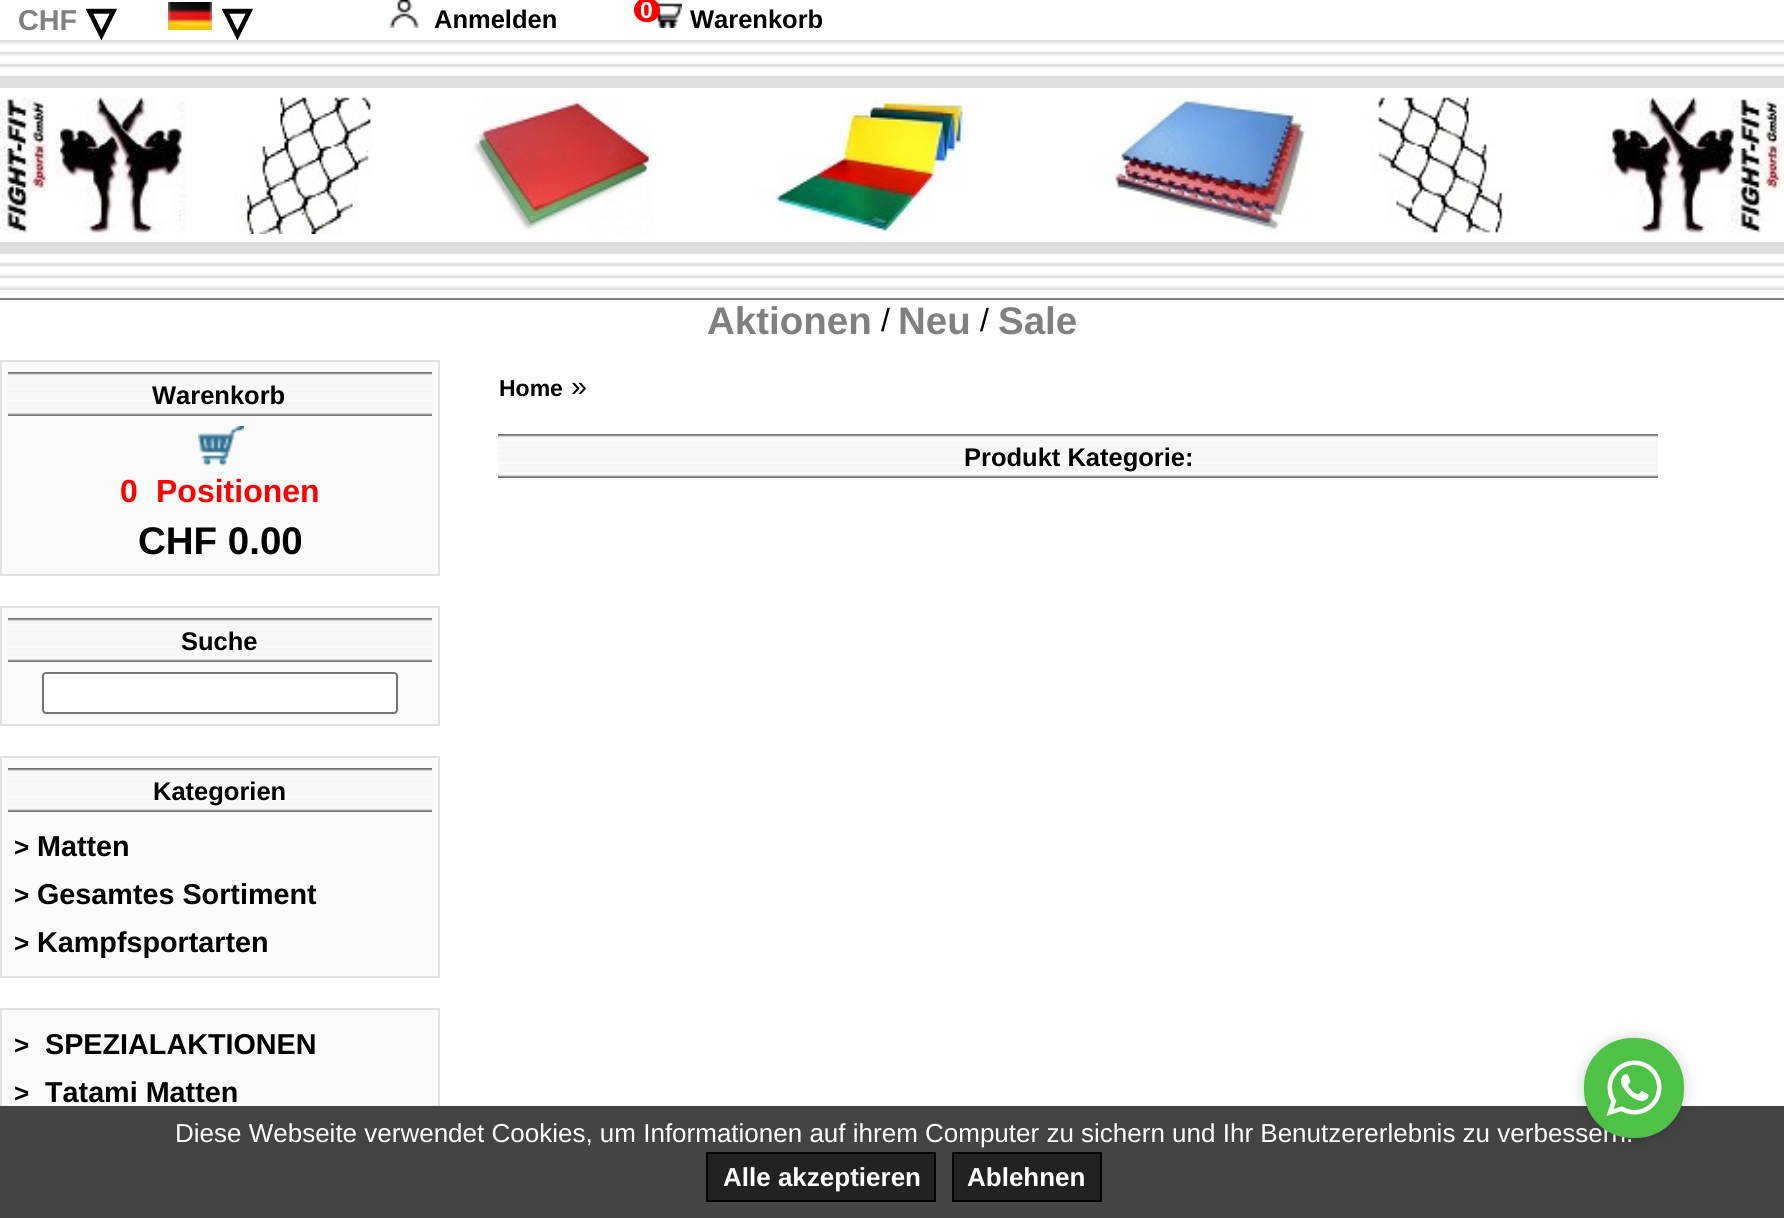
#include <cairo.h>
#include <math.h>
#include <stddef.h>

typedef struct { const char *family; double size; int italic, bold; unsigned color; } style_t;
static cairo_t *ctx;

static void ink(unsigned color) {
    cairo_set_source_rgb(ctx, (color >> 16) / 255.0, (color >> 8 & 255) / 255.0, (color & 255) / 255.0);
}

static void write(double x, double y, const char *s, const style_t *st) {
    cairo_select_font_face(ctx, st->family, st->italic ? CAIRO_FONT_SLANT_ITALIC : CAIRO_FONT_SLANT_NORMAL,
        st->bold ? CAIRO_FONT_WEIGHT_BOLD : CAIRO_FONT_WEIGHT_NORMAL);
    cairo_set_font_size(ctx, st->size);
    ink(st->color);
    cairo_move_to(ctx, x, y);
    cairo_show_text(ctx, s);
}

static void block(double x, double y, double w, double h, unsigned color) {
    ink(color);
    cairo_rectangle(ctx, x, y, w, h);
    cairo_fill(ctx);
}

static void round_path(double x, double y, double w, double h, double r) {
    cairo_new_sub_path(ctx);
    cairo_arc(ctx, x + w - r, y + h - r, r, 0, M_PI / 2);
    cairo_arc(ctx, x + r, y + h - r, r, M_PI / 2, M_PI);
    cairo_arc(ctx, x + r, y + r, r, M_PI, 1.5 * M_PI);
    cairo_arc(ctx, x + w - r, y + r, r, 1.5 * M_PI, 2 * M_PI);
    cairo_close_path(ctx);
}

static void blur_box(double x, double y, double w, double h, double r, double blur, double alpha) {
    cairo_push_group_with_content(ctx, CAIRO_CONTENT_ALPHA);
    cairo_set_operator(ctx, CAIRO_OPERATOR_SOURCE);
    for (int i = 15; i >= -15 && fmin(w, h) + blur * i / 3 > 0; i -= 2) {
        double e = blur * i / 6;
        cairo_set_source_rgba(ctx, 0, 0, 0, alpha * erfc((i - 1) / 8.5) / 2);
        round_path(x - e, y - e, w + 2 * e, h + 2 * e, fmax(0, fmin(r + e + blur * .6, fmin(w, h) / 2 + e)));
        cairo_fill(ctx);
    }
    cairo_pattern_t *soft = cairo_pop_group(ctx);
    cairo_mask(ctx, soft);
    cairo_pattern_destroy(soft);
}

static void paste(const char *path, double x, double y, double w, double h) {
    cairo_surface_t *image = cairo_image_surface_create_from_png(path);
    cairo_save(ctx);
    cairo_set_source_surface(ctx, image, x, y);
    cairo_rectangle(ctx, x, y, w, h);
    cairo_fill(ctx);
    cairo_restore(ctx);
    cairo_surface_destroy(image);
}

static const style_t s1 = {"Liberation Sans", 28.75, 0, 1, 0x808080};
static const style_t s2 = {"DejaVu Sans", 58, 0, 1, 0x000000};
static const style_t s3 = {"Liberation Sans", 25.5, 0, 1, 0x000000};
static const style_t s4 = {"Liberation Sans", 23, 0, 1, 0xffffff};
static const style_t s5 = {"Liberation Sans", 38.5, 0, 1, 0x808080};
static const style_t s6 = {"Liberation Sans", 32, 0, 0, 0x000000};
static const style_t s7 = {"Liberation Sans", 32, 0, 1, 0xff0000};
static const style_t s8 = {"Liberation Sans", 38.5, 0, 1, 0x000000};
static const style_t s9 = {"Liberation Sans", 26, 0, 1, 0x000000};
static const style_t s10 = {"Liberation Sans", 28.75, 0, 1, 0x000000};
static const style_t s11 = {"Liberation Sans", 23, 0, 1, 0x000000};
static const style_t s12 = {"Liberation Sans", 28.75, 0, 0, 0x000000};
static const style_t s13 = {"Liberation Sans", 26, 0, 0, 0xffffff};
static const style_t s14 = {"Liberation Sans", 26, 0, 1, 0xffffff};

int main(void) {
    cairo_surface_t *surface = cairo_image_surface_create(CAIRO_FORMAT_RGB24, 1784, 1218);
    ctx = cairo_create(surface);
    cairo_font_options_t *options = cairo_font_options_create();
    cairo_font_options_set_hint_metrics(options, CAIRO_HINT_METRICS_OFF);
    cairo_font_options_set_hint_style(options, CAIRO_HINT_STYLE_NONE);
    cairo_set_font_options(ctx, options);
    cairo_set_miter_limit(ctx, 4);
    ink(0xffffff);
    cairo_paint(ctx);
    write(18, 30, "CHF", &s1);
    write(86, 40, "▿", &s2);
    paste("pic1.png", 168, 2, 44, 28);
    write(222, 40, "▿", &s2);
    paste("pic2.png", 389, 0, 30, 28);
    write(434, 28, "Anmelden", &s3);
    paste("pic3.png", 656, 2, 26, 26);
    ink(0xff0000);
    round_path(634, -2, 26, 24, 12);
    cairo_fill(ctx);
    write(640, 18, "0", &s4);
    write(690, 28, "Warenkorb", &s3);
    paste("pic4.png", 0, 40, 1784, 48);
    paste("pic5.png", 0, 96, 1784, 138);
    paste("pic6.png", 0, 242, 1784, 48);
    block(0, 298, 1784, 2, 0x808080);
    write(707, 334, "Aktionen", &s5);
    write(881, 331, "/", &s6);
    write(898, 334, "Neu", &s5);
    write(980, 331, "/", &s6);
    write(998, 334, "Sale", &s5);
    ink(0xfafafa);
    cairo_rectangle(ctx, 1, 361, 438, 214);
    cairo_fill_preserve(ctx);
    ink(0xe0e0e0);
    cairo_stroke(ctx);
    paste("pic7.png", 8, 372, 424, 44);
    write(152, 404, "Warenkorb", &s3);
    paste("pic8.png", 198, 426, 46, 40);
    write(120, 502, "0", &s7);
    write(156, 502, "Positionen", &s7);
    write(138, 554, "CHF 0.00", &s8);
    ink(0xfafafa);
    cairo_rectangle(ctx, 1, 607, 438, 118);
    cairo_fill_preserve(ctx);
    ink(0xe0e0e0);
    cairo_stroke(ctx);
    paste("pic7.png", 8, 618, 424, 44);
    write(181, 650, "Suche", &s3);
    ink(0xffffff);
    round_path(43, 673, 354, 40, 3);
    cairo_fill_preserve(ctx);
    ink(0x767676);
    cairo_stroke(ctx);
    ink(0xfafafa);
    cairo_rectangle(ctx, 1, 757, 438, 220);
    cairo_fill_preserve(ctx);
    ink(0xe0e0e0);
    cairo_stroke(ctx);
    paste("pic7.png", 8, 768, 424, 44);
    write(153, 800, "Kategorien", &s3);
    write(14, 856, ">", &s9);
    write(37, 856, "Matten", &s10);
    write(14, 904, ">", &s9);
    write(37, 904, "Gesamtes Sortiment", &s10);
    write(14, 952, ">", &s9);
    write(37, 952, "Kampfsportarten", &s10);
    block(2, 1010, 436, 96, 0xfafafa);
    cairo_rectangle(ctx, 1, 1009, 438, 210);
    ink(0xe0e0e0);
    cairo_stroke(ctx);
    write(14, 1054, ">", &s9);
    write(45, 1054, "SPEZIALAKTIONEN", &s10);
    write(14, 1102, ">", &s9);
    write(45, 1102, "Tatami Matten", &s10);
    write(499, 396, "Home", &s11);
    write(571, 396, "»", &s12);
    paste("pic9.png", 498, 434, 1160, 44);
    write(964, 466, "Produkt Kategorie:", &s3);
    block(0, 1106, 1784, 112, 0x444444);
    write(175, 1142, "Diese Webseite verwendet Cookies, um Informationen auf ihrem Computer zu sichern und Ihr Benutzererlebnis zu verbessern.", &s13);
    ink(0x222222);
    cairo_rectangle(ctx, 707, 1153, 228, 48);
    cairo_fill_preserve(ctx);
    ink(0x000000);
    cairo_stroke(ctx);
    write(723, 1186, "Alle akzeptieren", &s14);
    ink(0x222222);
    cairo_rectangle(ctx, 953, 1153, 148, 48);
    cairo_fill_preserve(ctx);
    ink(0x000000);
    cairo_stroke(ctx);
    write(967, 1186, "Ablehnen", &s14);
    ink(0x000000);
    blur_box(1584, 1038, 100, 100, 48, 7, 0.2);
    ink(0x4dc247);
    round_path(1584, 1038, 100, 100, 48);
    cairo_fill(ctx);
    paste("pic10.png", 1606, 1060, 56, 56);
    cairo_surface_write_to_png(surface, "screenshot.png");
    cairo_font_options_destroy(options);
    cairo_destroy(ctx);
    cairo_surface_destroy(surface);
    return 0;
}
